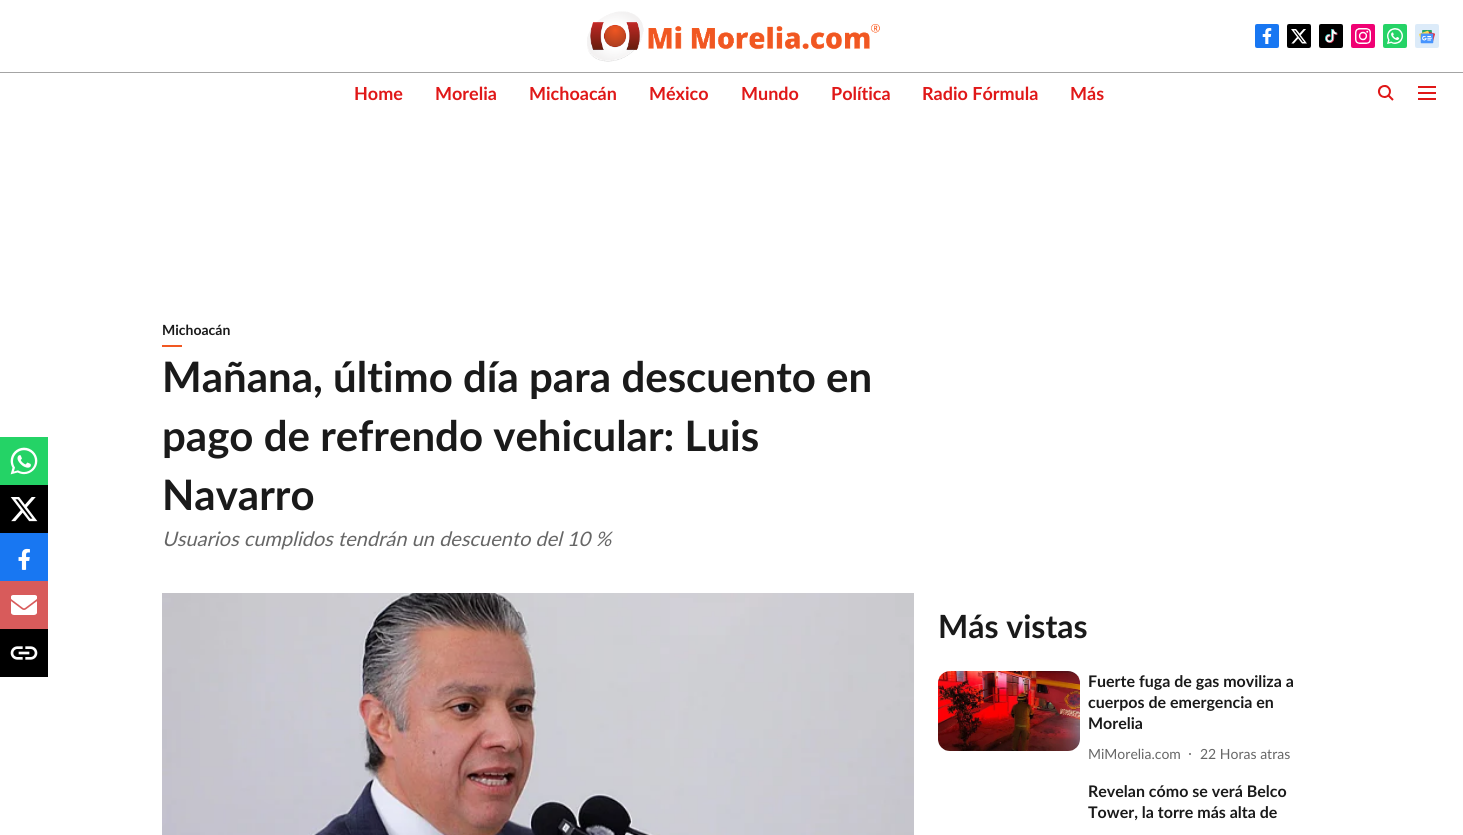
#include <cairo.h>
#include <math.h>
#include <stddef.h>

typedef struct { const char *family; double size; int italic, bold; unsigned color; } style_t;
static cairo_t *ctx;

static void ink(unsigned color) {
    cairo_set_source_rgb(ctx, (color >> 16) / 255.0, (color >> 8 & 255) / 255.0, (color & 255) / 255.0);
}

static void write(double x, double y, const char *s, const style_t *st) {
    cairo_select_font_face(ctx, st->family, st->italic ? CAIRO_FONT_SLANT_ITALIC : CAIRO_FONT_SLANT_NORMAL,
        st->bold ? CAIRO_FONT_WEIGHT_BOLD : CAIRO_FONT_WEIGHT_NORMAL);
    cairo_set_font_size(ctx, st->size);
    ink(st->color);
    cairo_move_to(ctx, x, y);
    cairo_show_text(ctx, s);
}

static void block(double x, double y, double w, double h, unsigned color) {
    ink(color);
    cairo_rectangle(ctx, x, y, w, h);
    cairo_fill(ctx);
}

static void paste(const char *path, double x, double y, double w, double h) {
    cairo_surface_t *image = cairo_image_surface_create_from_png(path);
    cairo_save(ctx);
    cairo_set_source_surface(ctx, image, x, y);
    cairo_rectangle(ctx, x, y, w, h);
    cairo_fill(ctx);
    cairo_restore(ctx);
    cairo_surface_destroy(image);
}

static const style_t s1 = {"Lato", 18, 0, 1, 0xe01818};
static const style_t s2 = {"Lato", 14, 0, 1, 0x1a1a1a};
static const style_t s3 = {"Lato", 42, 0, 1, 0x1a1a1a};
static const style_t s4 = {"Lato", 20, 1, 0, 0x666666};
static const style_t s5 = {"Lato", 32, 0, 1, 0x1a1a1a};
static const style_t s6 = {"Lato", 16, 0, 1, 0x1a1a1a};
static const style_t s7 = {"Lato", 14, 0, 0, 0x666666};

int main(void) {
    cairo_surface_t *surface = cairo_image_surface_create(CAIRO_FORMAT_RGB24, 1463, 835);
    ctx = cairo_create(surface);
    cairo_font_options_t *options = cairo_font_options_create();
    cairo_font_options_set_hint_metrics(options, CAIRO_HINT_METRICS_OFF);
    cairo_font_options_set_hint_style(options, CAIRO_HINT_STYLE_NONE);
    cairo_set_font_options(ctx, options);
    cairo_set_miter_limit(ctx, 4);
    ink(0xffffff);
    cairo_paint(ctx);
    block(0, 72, 1463, 1, 0xa4a4a4);
    paste("pic1.png", 587, 11, 293, 51);
    paste("pic2.png", 1255, 24, 24, 24);
    paste("pic3.png", 1287, 24, 24, 24);
    paste("pic4.png", 1319, 24, 24, 24);
    paste("pic5.png", 1351, 24, 24, 24);
    paste("pic6.png", 1383, 24, 24, 24);
    paste("pic7.png", 1415, 24, 24, 24);
    write(354, 100, "Home", &s1);
    write(435, 100, "Morelia", &s1);
    write(529, 100, "Michoacán", &s1);
    write(649, 100, "México", &s1);
    write(741, 100, "Mundo", &s1);
    write(831, 100, "Política", &s1);
    write(922, 100, "Radio Fórmula", &s1);
    write(1070, 100, "Más", &s1);
    paste("pic8.png", 1377, 85, 17, 16);
    paste("pic9.png", 1418, 86, 18, 14);
    block(0, 437, 48, 48, 0x24d366);
    paste("pic10.png", 10, 447, 28, 28);
    block(0, 485, 48, 48, 0x000000);
    paste("pic11.png", 10, 497, 28, 25);
    block(0, 533, 48, 48, 0x1877f2);
    paste("pic12.png", 18, 548, 12, 22);
    block(0, 581, 48, 48, 0xd85b5b);
    paste("pic13.png", 11, 595, 26, 20);
    block(0, 629, 48, 48, 0x000000);
    paste("pic14.png", 10, 646, 28, 14);
    write(162, 335, "Michoacán", &s2);
    block(162, 345, 20, 2, 0xf15822);
    write(162, 392, "Mañana, último día para descuento en", &s3);
    write(162, 451, "pago de refrendo vehicular: Luis", &s3);
    write(162, 510, "Navarro", &s3);
    write(162, 546, "Usuarios cumplidos tendrán un descuento del 10 %", &s4);
    paste("pic15.png", 162, 593, 752, 242);
    write(938, 638, "Más vistas", &s5);
    paste("pic16.png", 938, 671, 142, 80);
    write(1088, 687, "Fuerte fuga de gas moviliza a", &s6);
    write(1088, 708, "cuerpos de emergencia en", &s6);
    write(1088, 729, "Morelia", &s6);
    write(1088, 759, "MiMorelia.com", &s7);
    cairo_new_path(ctx);
    cairo_arc(ctx, 1190, 754, 1, 0, 2 * M_PI);
    cairo_fill(ctx);
    write(1200, 759, "22 Horas atras", &s7);
    write(1088, 797, "Revelan cómo se verá Belco", &s6);
    write(1088, 818, "Tower, la torre más alta de", &s6);
    cairo_surface_write_to_png(surface, "screenshot.png");
    cairo_font_options_destroy(options);
    cairo_destroy(ctx);
    cairo_surface_destroy(surface);
    return 0;
}
